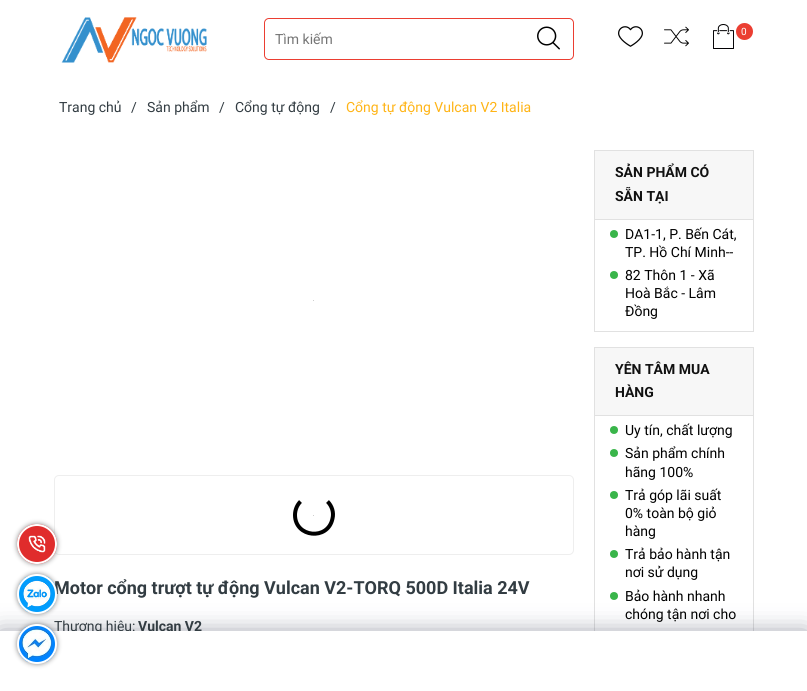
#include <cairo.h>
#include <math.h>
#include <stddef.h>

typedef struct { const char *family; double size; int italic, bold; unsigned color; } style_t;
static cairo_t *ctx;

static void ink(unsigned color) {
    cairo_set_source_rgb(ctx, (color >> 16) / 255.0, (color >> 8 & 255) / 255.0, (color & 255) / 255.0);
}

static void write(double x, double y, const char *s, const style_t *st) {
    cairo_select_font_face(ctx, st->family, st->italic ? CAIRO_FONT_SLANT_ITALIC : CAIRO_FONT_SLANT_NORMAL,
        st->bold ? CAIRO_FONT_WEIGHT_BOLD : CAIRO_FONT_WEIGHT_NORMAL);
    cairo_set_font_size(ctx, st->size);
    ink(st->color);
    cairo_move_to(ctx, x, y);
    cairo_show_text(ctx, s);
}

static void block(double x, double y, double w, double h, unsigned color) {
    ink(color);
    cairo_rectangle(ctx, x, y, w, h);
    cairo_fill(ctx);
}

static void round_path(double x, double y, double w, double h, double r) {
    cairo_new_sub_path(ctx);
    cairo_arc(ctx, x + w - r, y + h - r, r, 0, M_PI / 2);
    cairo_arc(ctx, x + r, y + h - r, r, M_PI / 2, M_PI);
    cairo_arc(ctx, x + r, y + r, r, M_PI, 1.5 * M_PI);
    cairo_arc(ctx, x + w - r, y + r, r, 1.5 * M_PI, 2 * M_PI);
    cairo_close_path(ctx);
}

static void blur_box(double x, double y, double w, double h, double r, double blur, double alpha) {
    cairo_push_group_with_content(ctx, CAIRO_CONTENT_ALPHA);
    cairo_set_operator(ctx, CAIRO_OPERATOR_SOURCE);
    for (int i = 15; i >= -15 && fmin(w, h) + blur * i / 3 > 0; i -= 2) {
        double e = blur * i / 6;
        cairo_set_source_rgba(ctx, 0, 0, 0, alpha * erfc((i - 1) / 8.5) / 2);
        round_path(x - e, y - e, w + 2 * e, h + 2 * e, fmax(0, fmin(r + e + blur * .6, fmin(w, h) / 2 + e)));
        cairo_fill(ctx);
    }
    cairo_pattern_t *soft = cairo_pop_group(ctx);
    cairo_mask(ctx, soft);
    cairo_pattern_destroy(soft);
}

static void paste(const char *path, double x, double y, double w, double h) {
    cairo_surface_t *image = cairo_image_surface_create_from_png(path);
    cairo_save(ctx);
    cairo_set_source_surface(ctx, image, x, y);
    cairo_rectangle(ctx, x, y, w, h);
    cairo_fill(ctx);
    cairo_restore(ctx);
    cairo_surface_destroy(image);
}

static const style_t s1 = {"Roboto", 14, 0, 0, 0x757575};
static const style_t s2 = {"Roboto", 10, 0, 0, 0xffffff};
static const style_t s3 = {"Roboto", 14, 0, 0, 0x323c42};
static const style_t s4 = {"Roboto", 14, 0, 1, 0x323c42};
static const style_t s5 = {"Roboto", 14, 0, 0, 0xffb416};
static const style_t s6 = {"Roboto", 18, 0, 1, 0x323c42};
static const style_t s7 = {"Roboto", 14, 0, 1, 0x111111};
static const style_t s8 = {"Roboto", 14, 0, 0, 0x000000};

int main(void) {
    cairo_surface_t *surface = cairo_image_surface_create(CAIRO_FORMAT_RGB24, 807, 691);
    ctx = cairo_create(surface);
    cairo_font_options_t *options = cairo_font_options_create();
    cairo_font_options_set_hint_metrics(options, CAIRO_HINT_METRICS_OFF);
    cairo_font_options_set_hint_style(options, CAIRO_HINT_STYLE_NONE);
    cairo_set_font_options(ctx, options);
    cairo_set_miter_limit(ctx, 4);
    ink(0xffffff);
    cairo_paint(ctx);
    paste("pic1.png", 61, 17, 146, 46);
    round_path(264.5, 18.5, 309, 41, 4.5);
    ink(0xeb3e32);
    cairo_set_line_width(ctx, 1);
    cairo_stroke(ctx);
    ink(0xffffff);
    round_path(265, 19, 308, 40, 6);
    cairo_fill(ctx);
    write(275, 44, "Tìm kiếm", &s1);
    paste("pic2.png", 537, 26, 23, 24);
    paste("pic3.png", 618, 26, 25, 21);
    paste("pic4.png", 664, 26, 25, 21);
    paste("pic5.png", 713, 24, 21, 25);
    ink(0xeb3e32);
    cairo_arc(ctx, 744.5, 31.5, 8.5, 0, 2 * M_PI);
    cairo_fill(ctx);
    write(741, 35, "0", &s2);
    cairo_rectangle(ctx, 594.5, 347.5, 159, 322);
    ink(0xe1e1e1);
    cairo_stroke(ctx);
    ink(0x39b54a);
    cairo_arc(ctx, 614, 596, 4, 0, 2 * M_PI);
    cairo_fill(ctx);
    ink(0x1f2643);
    blur_box(0, 634, 807, 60, 0, 12.5, 0.5);
    write(54, 631, "Thương hiệu:", &s3);
    write(138, 631, "Vulcan V2", &s4);
    block(0, 631, 807, 60, 0xffffff);
    write(59, 112, "Trang chủ", &s3);
    write(131, 112, "/", &s3);
    write(147, 112, "Sản phẩm", &s3);
    write(219, 112, "/", &s3);
    write(235, 112, "Cổng tự động", &s3);
    write(330, 112, "/", &s3);
    write(346, 112, "Cổng tự động Vulcan V2 Italia", &s5);
    round_path(54.5, 475.5, 519, 79, 4.5);
    ink(0xeeeeee);
    cairo_stroke(ctx);
    ink(0x888888);
    blur_box(17, 524, 40, 40, 20, 2.5, 1);
    ink(0xe02c2c);
    cairo_arc(ctx, 37, 544, 20, 0, 2 * M_PI);
    cairo_fill(ctx);
    paste("pic6.png", 28, 535, 18, 18);
    cairo_arc(ctx, 37, 544, 19, 0, 2 * M_PI);
    ink(0xffffff);
    cairo_set_line_width(ctx, 2);
    cairo_stroke(ctx);
    ink(0x888888);
    blur_box(17, 574, 40, 40, 20, 2.5, 1);
    write(54, 594, "Motor cổng trượt tự động Vulcan V2-TORQ 500D Italia 24V", &s6);
    paste("pic7.png", 19, 576, 36, 36);
    cairo_arc(ctx, 37, 594, 19, 0, 2 * M_PI);
    ink(0xffffff);
    cairo_stroke(ctx);
    ink(0x888888);
    blur_box(17, 624, 40, 40, 20, 2.5, 1);
    paste("pic8.png", 19, 626, 36, 36);
    cairo_arc(ctx, 37, 644, 19, 0, 2 * M_PI);
    ink(0xffffff);
    cairo_stroke(ctx);
    block(313, 300, 1, 1, 0xcecece);
    block(313, 515, 1, 1, 0xcecece);
    cairo_new_path(ctx);
    cairo_move_to(ctx, 327.5, 501.5);
    cairo_curve_to(ctx, 332, 506, 334, 512.5, 332.5, 518.5);
    cairo_curve_to(ctx, 328, 541, 295, 537.5, 295, 515);
    cairo_curve_to(ctx, 295, 510, 297, 505, 300.5, 501.5);
    ink(0x000000);
    cairo_set_line_width(ctx, 4);
    cairo_stroke(ctx);
    cairo_rectangle(ctx, 594.5, 150.5, 159, 181);
    ink(0xe1e1e1);
    cairo_set_line_width(ctx, 1);
    cairo_stroke(ctx);
    block(595, 151, 158, 68, 0xf7f7f7);
    block(595, 219, 158, 1, 0xe1e1e1);
    write(615, 177, "SẢN PHẨM CÓ", &s7);
    write(615, 201, "SẴN TẠI", &s7);
    ink(0x39b54a);
    cairo_new_path(ctx);
    cairo_arc(ctx, 614, 234, 4, 0, 2 * M_PI);
    cairo_fill(ctx);
    write(625, 239, "DA1-1, P. Bến Cát,", &s8);
    write(625, 257, "TP. Hồ Chí Minh--", &s8);
    ink(0x39b54a);
    cairo_new_path(ctx);
    cairo_arc(ctx, 614, 275, 4, 0, 2 * M_PI);
    cairo_fill(ctx);
    write(625, 280, "82 Thôn 1 - Xã", &s8);
    write(625, 298, "Hoà Bắc - Lâm", &s8);
    write(625, 316, "Đồng", &s8);
    block(595, 348, 158, 67, 0xf7f7f7);
    block(595, 415, 158, 1, 0xe1e1e1);
    write(615, 374, "YÊN TÂM MUA", &s7);
    write(615, 397, "HÀNG", &s7);
    ink(0x39b54a);
    cairo_new_path(ctx);
    cairo_arc(ctx, 614, 430, 4, 0, 2 * M_PI);
    cairo_fill(ctx);
    write(625, 435, "Uy tín, chất lượng", &s8);
    ink(0x39b54a);
    cairo_new_path(ctx);
    cairo_arc(ctx, 614, 453, 4, 0, 2 * M_PI);
    cairo_fill(ctx);
    write(625, 458, "Sản phẩm chính", &s8);
    write(625, 477, "hãng 100%", &s8);
    ink(0x39b54a);
    cairo_new_path(ctx);
    cairo_arc(ctx, 614, 495, 4, 0, 2 * M_PI);
    cairo_fill(ctx);
    write(625, 500, "Trả góp lãi suất", &s8);
    write(625, 518, "0% toàn bộ giỏ", &s8);
    write(625, 536, "hàng", &s8);
    ink(0x39b54a);
    cairo_new_path(ctx);
    cairo_arc(ctx, 614, 554, 4, 0, 2 * M_PI);
    cairo_fill(ctx);
    write(625, 559, "Trả bảo hành tận", &s8);
    write(625, 577, "nơi sử dụng", &s8);
    write(625, 601, "Bảo hành nhanh", &s8);
    write(625, 619, "chóng tận nơi cho", &s8);
    cairo_surface_write_to_png(surface, "screenshot.png");
    cairo_font_options_destroy(options);
    cairo_destroy(ctx);
    cairo_surface_destroy(surface);
    return 0;
}
